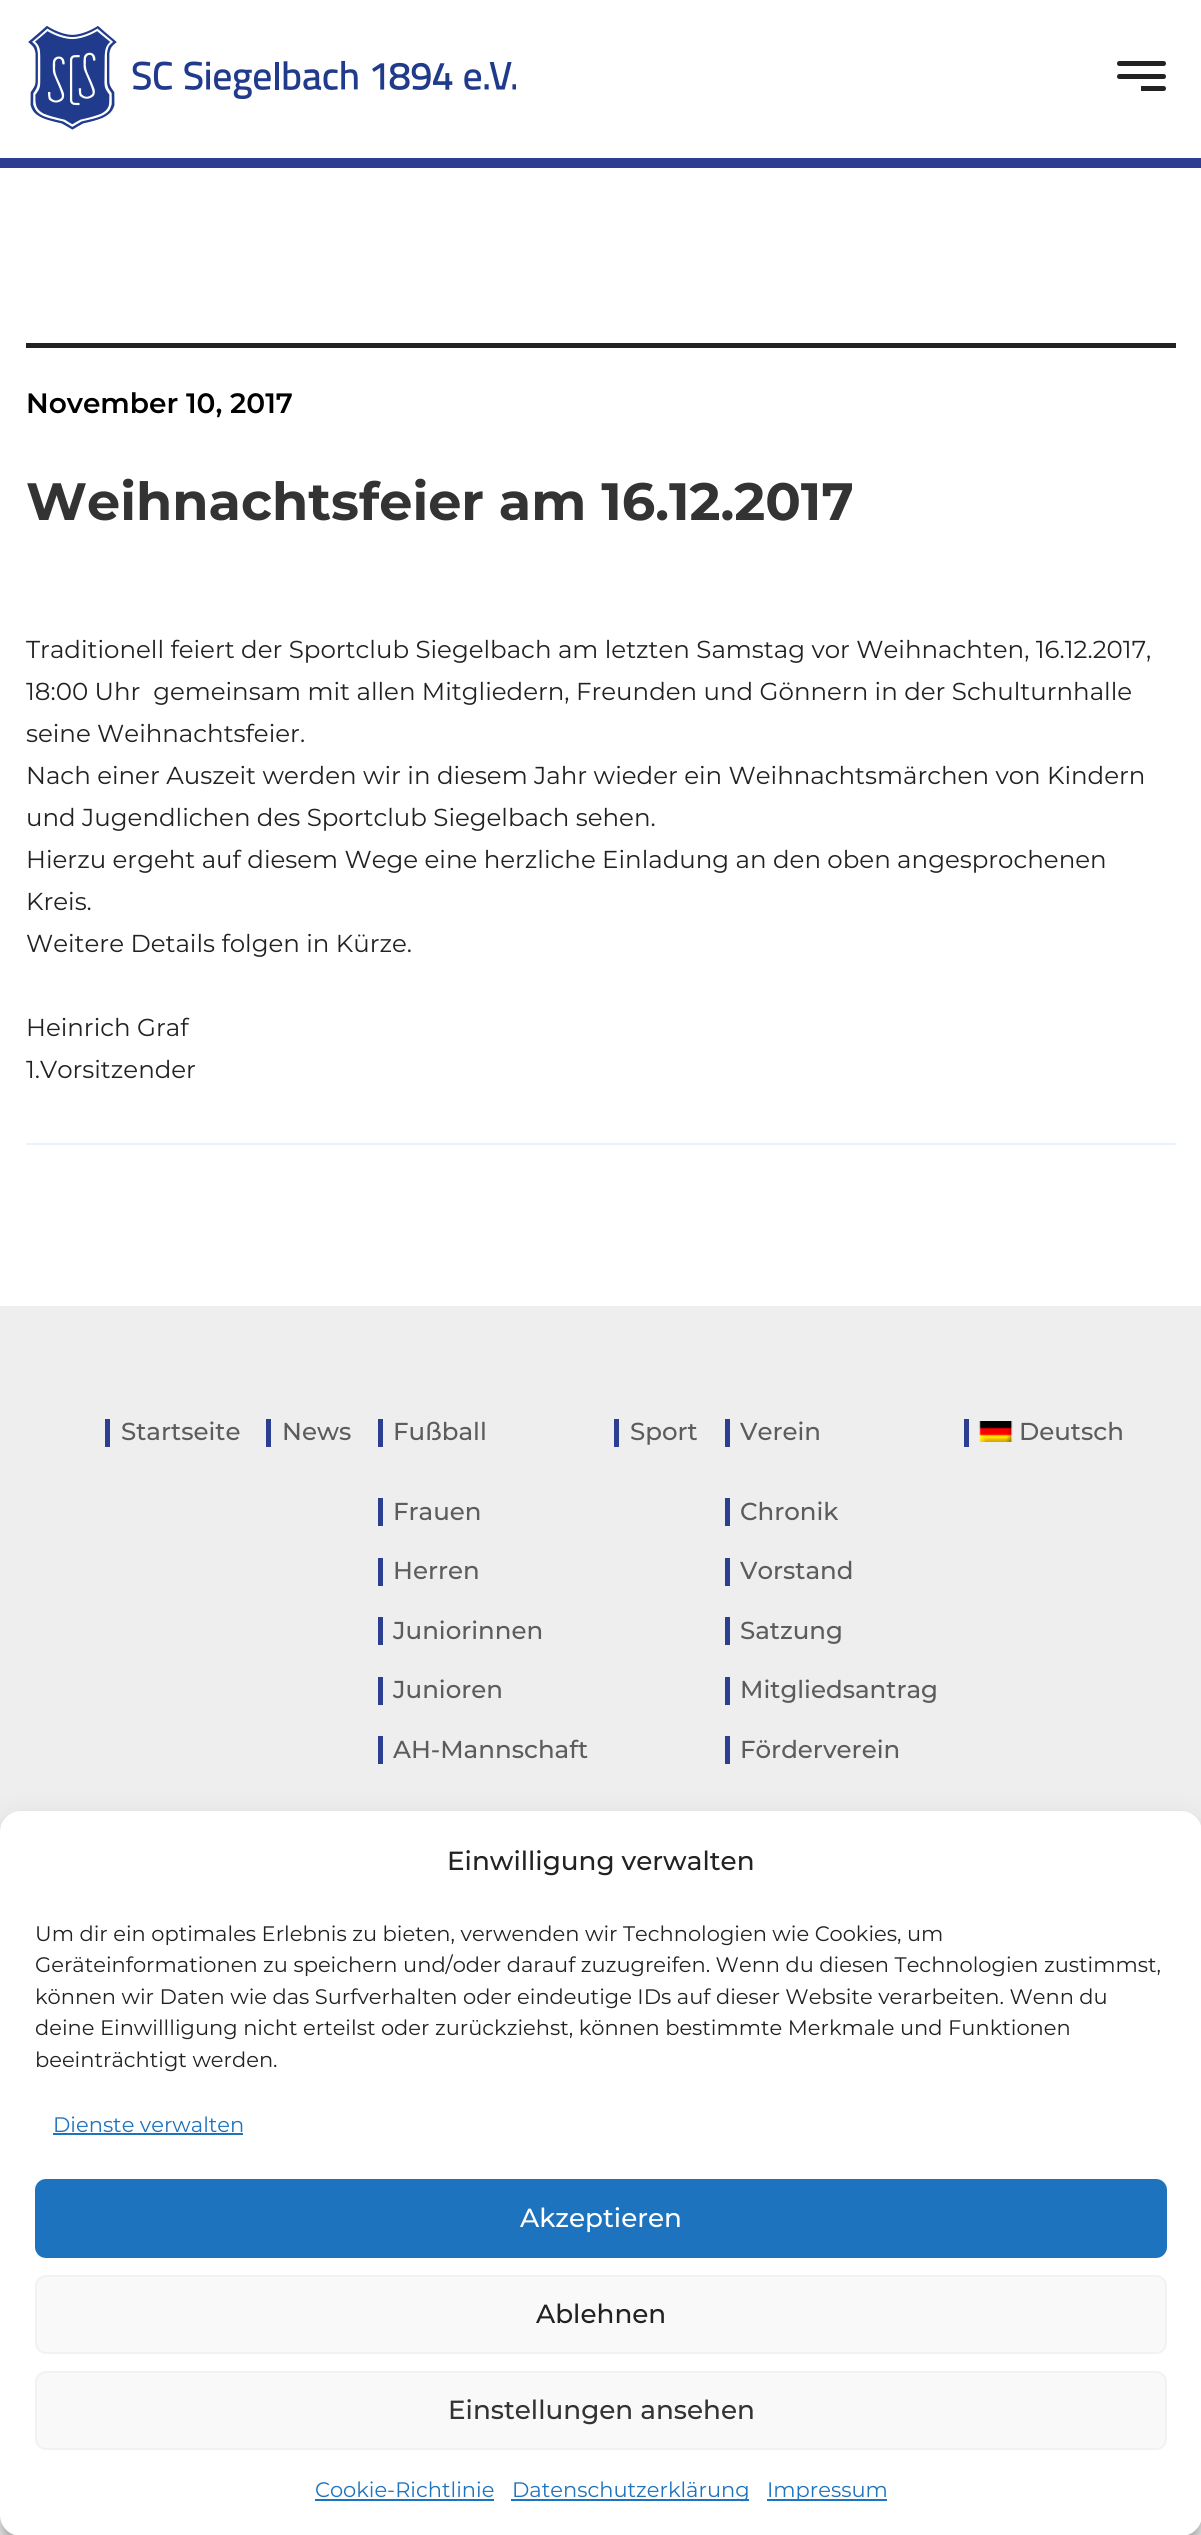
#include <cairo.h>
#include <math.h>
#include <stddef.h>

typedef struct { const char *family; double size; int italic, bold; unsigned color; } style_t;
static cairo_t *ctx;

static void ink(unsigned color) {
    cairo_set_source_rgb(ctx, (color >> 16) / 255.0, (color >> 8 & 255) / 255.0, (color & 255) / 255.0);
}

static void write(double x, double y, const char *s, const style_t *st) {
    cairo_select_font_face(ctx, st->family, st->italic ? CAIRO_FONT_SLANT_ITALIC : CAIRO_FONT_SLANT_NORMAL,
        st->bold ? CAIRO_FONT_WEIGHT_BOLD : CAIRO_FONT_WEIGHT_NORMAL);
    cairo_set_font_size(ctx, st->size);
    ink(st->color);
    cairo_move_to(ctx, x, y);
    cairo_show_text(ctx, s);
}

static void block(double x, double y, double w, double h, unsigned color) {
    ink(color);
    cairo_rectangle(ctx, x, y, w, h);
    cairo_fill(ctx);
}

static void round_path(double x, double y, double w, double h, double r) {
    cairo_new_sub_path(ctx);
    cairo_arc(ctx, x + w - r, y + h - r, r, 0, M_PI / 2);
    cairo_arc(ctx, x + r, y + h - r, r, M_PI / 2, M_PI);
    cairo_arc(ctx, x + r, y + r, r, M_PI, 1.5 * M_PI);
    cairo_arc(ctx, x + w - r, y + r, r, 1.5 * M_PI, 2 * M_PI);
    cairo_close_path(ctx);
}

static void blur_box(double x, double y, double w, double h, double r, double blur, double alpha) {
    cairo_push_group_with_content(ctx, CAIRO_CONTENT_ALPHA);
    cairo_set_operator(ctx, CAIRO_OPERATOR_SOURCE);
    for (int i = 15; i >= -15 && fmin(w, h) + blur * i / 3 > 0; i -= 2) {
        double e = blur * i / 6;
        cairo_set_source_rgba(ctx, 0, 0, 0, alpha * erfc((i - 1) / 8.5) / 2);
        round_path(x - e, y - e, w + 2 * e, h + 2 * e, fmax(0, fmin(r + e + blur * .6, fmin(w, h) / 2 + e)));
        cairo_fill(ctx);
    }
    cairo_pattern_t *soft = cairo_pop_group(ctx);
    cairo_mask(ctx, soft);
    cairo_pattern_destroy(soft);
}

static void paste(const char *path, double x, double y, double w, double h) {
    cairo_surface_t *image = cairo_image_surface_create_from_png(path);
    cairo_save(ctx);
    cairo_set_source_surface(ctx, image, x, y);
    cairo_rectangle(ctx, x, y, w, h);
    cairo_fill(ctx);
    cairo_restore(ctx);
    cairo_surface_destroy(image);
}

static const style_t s1 = {"Montserrat SemiBold", 28, 0, 0, 0x000000};
static const style_t s2 = {"Montserrat", 52.5, 0, 1, 0x333333};
static const style_t s3 = {"Montserrat", 24.5, 0, 0, 0x222222};
static const style_t s4 = {"Montserrat Medium", 24.5, 0, 0, 0x5c5c5c};
static const style_t s5 = {"Montserrat Medium", 26.25, 0, 0, 0x222222};
static const style_t s6 = {"Montserrat", 21, 0, 0, 0x222222};
static const style_t s7 = {"Montserrat", 21, 0, 0, 0x1e73be};
static const style_t s8 = {"Montserrat Medium", 26.25, 0, 0, 0xffffff};
static const style_t s9 = {"Montserrat Medium", 26.25, 0, 0, 0x333333};

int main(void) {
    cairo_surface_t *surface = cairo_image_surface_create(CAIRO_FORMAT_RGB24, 1201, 2535);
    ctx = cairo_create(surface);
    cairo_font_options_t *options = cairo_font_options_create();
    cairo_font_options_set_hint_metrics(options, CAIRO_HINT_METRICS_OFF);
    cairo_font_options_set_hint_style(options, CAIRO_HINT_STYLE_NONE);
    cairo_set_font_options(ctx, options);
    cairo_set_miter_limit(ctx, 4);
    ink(0xffffff);
    cairo_paint(ctx);
    block(0, 158, 1201, 10, 0x2b3e91);
    paste("pic1.png", 28, 26, 488, 104);
    ink(0x222222);
    cairo_new_path(ctx);
    cairo_move_to(ctx, 1119.5, 61);
    cairo_line_to(ctx, 1141, 61);
    cairo_line_to(ctx, 1141, 66);
    cairo_line_to(ctx, 1119.5, 66);
    cairo_curve_to(ctx, 1118, 66, 1117, 65, 1117, 63.5);
    cairo_curve_to(ctx, 1117, 62, 1118, 61, 1119.5, 61);
    cairo_close_path(ctx);
    cairo_fill(ctx);
    cairo_new_path(ctx);
    cairo_move_to(ctx, 1141, 61);
    cairo_line_to(ctx, 1163.5, 61);
    cairo_curve_to(ctx, 1165, 61, 1166, 62, 1166, 63.5);
    cairo_curve_to(ctx, 1166, 65, 1165, 66, 1163.5, 66);
    cairo_line_to(ctx, 1141, 66);
    cairo_close_path(ctx);
    cairo_fill(ctx);
    cairo_new_path(ctx);
    cairo_move_to(ctx, 1119.5, 74);
    cairo_line_to(ctx, 1141, 74);
    cairo_line_to(ctx, 1141, 79);
    cairo_line_to(ctx, 1119.5, 79);
    cairo_curve_to(ctx, 1118, 79, 1117, 78, 1117, 76.5);
    cairo_curve_to(ctx, 1117, 75, 1118, 74, 1119.5, 74);
    cairo_close_path(ctx);
    cairo_fill(ctx);
    cairo_new_path(ctx);
    cairo_move_to(ctx, 1141, 74);
    cairo_line_to(ctx, 1163.5, 74);
    cairo_curve_to(ctx, 1165, 74, 1166, 75, 1166, 76.5);
    cairo_curve_to(ctx, 1166, 78, 1165, 79, 1163.5, 79);
    cairo_line_to(ctx, 1141, 79);
    cairo_close_path(ctx);
    cairo_fill(ctx);
    cairo_new_path(ctx);
    cairo_move_to(ctx, 1141, 86);
    cairo_line_to(ctx, 1163.5, 86);
    cairo_curve_to(ctx, 1165, 86, 1166, 87, 1166, 88.5);
    cairo_curve_to(ctx, 1166, 90, 1165, 91, 1163.5, 91);
    cairo_line_to(ctx, 1141, 91);
    cairo_close_path(ctx);
    cairo_fill(ctx);
    block(26, 343, 1150, 5, 0x222222);
    write(26, 413, "November 10, 2017", &s1);
    write(26, 520, "Weihnachtsfeier am 16.12.2017", &s2);
    write(26, 658, "Traditionell feiert der Sportclub Siegelbach am letzten Samstag vor Weihnachten, 16.12.2017,", &s3);
    write(26, 700, "18:00 Uhr  gemeinsam mit allen Mitgliedern, Freunden und Gönnern in der Schulturnhalle", &s3);
    write(26, 742, "seine Weihnachtsfeier.", &s3);
    write(26, 784, "Nach einer Auszeit werden wir in diesem Jahr wieder ein Weihnachtsmärchen von Kindern", &s3);
    write(26, 826, "und Jugendlichen des Sportclub Siegelbach sehen.", &s3);
    write(26, 868, "Hierzu ergeht auf diesem Wege eine herzliche Einladung an den oben angesprochenen", &s3);
    write(26, 910, "Kreis.", &s3);
    write(26, 952, "Weitere Details folgen in Kürze.", &s3);
    write(26, 1036, "Heinrich Graf", &s3);
    write(26, 1078, "1.Vorsitzender", &s3);
    block(26, 1143, 1150, 2, 0xe7f3ff);
    block(0, 1306, 1201, 526, 0xeeeeee);
    block(105, 1419, 5, 28, 0x2b3e91);
    write(121, 1440, "Startseite", &s4);
    block(266, 1419, 5, 28, 0x2b3e91);
    write(282, 1440, "News", &s4);
    block(378, 1419, 5, 28, 0x2b3e91);
    write(393, 1440, "Fußball", &s4);
    block(378, 1498, 5, 28, 0x2b3e91);
    write(393, 1520, "Frauen", &s4);
    block(378, 1558, 5, 28, 0x2b3e91);
    write(393, 1579, "Herren", &s4);
    block(378, 1617, 5, 28, 0x2b3e91);
    write(393, 1639, "Juniorinnen", &s4);
    block(378, 1677, 5, 28, 0x2b3e91);
    write(393, 1698, "Junioren", &s4);
    block(378, 1736, 5, 28, 0x2b3e91);
    write(393, 1758, "AH-Mannschaft", &s4);
    block(614, 1419, 5, 28, 0x2b3e91);
    write(630, 1440, "Sport", &s4);
    block(725, 1419, 5, 28, 0x2b3e91);
    write(740, 1440, "Verein", &s4);
    block(725, 1498, 5, 28, 0x2b3e91);
    write(740, 1520, "Chronik", &s4);
    block(725, 1558, 5, 28, 0x2b3e91);
    write(740, 1579, "Vorstand", &s4);
    block(725, 1617, 5, 28, 0x2b3e91);
    write(740, 1639, "Satzung", &s4);
    block(725, 1677, 5, 28, 0x2b3e91);
    write(740, 1698, "Mitgliedsantrag", &s4);
    block(725, 1736, 5, 28, 0x2b3e91);
    write(740, 1758, "Förderverein", &s4);
    block(964, 1419, 5, 28, 0x2b3e91);
    paste("pic2.png", 979, 1421, 34, 21);
    write(1019, 1440, "Deutsch", &s4);
    ink(0x000000);
    blur_box(0, 1822, 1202, 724, 21, 5, 0.23);
    blur_box(0, 1829, 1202, 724, 21, 17.5, 0.19);
    ink(0xffffff);
    round_path(0, 1811, 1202, 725, 21);
    cairo_fill(ctx);
    write(447, 1870, "Einwilligung verwalten", &s5);
    write(35, 1941, "Um dir ein optimales Erlebnis zu bieten, verwenden wir Technologien wie Cookies, um", &s6);
    write(35, 1972, "Geräteinformationen zu speichern und/oder darauf zuzugreifen. Wenn du diesen Technologien zustimmst,", &s6);
    write(35, 2004, "können wir Daten wie das Surfverhalten oder eindeutige IDs auf dieser Website verarbeiten. Wenn du", &s6);
    write(35, 2035, "deine Einwillligung nicht erteilst oder zurückziehst, können bestimmte Merkmale und Funktionen", &s6);
    write(35, 2067, "beeinträchtigt werden.", &s6);
    write(53, 2132, "Dienste verwalten", &s7);
    block(53, 2133, 190, 2, 0x1e73be);
    round_path(36, 2180, 1130, 77, 10);
    cairo_fill_preserve(ctx);
    cairo_stroke(ctx);
    write(520, 2227, "Akzeptieren", &s8);
    ink(0xf9f9f9);
    round_path(36, 2276, 1130, 77, 10);
    cairo_fill_preserve(ctx);
    ink(0xf2f2f2);
    cairo_stroke(ctx);
    write(536, 2323, "Ablehnen", &s5);
    ink(0xf9f9f9);
    round_path(36, 2372, 1130, 77, 10);
    cairo_fill_preserve(ctx);
    ink(0xf2f2f2);
    cairo_stroke(ctx);
    write(448, 2419, "Einstellungen ansehen", &s9);
    write(315, 2497, "Cookie-Richtlinie", &s7);
    block(315, 2499, 179, 2, 0x1e73be);
    block(511, 2499, 238, 2, 0x1e73be);
    write(512, 2497, "Datenschutzerklärung", &s7);
    block(767, 2499, 120, 2, 0x1e73be);
    write(767, 2497, "Impressum", &s7);
    cairo_surface_write_to_png(surface, "screenshot.png");
    cairo_font_options_destroy(options);
    cairo_destroy(ctx);
    cairo_surface_destroy(surface);
    return 0;
}
